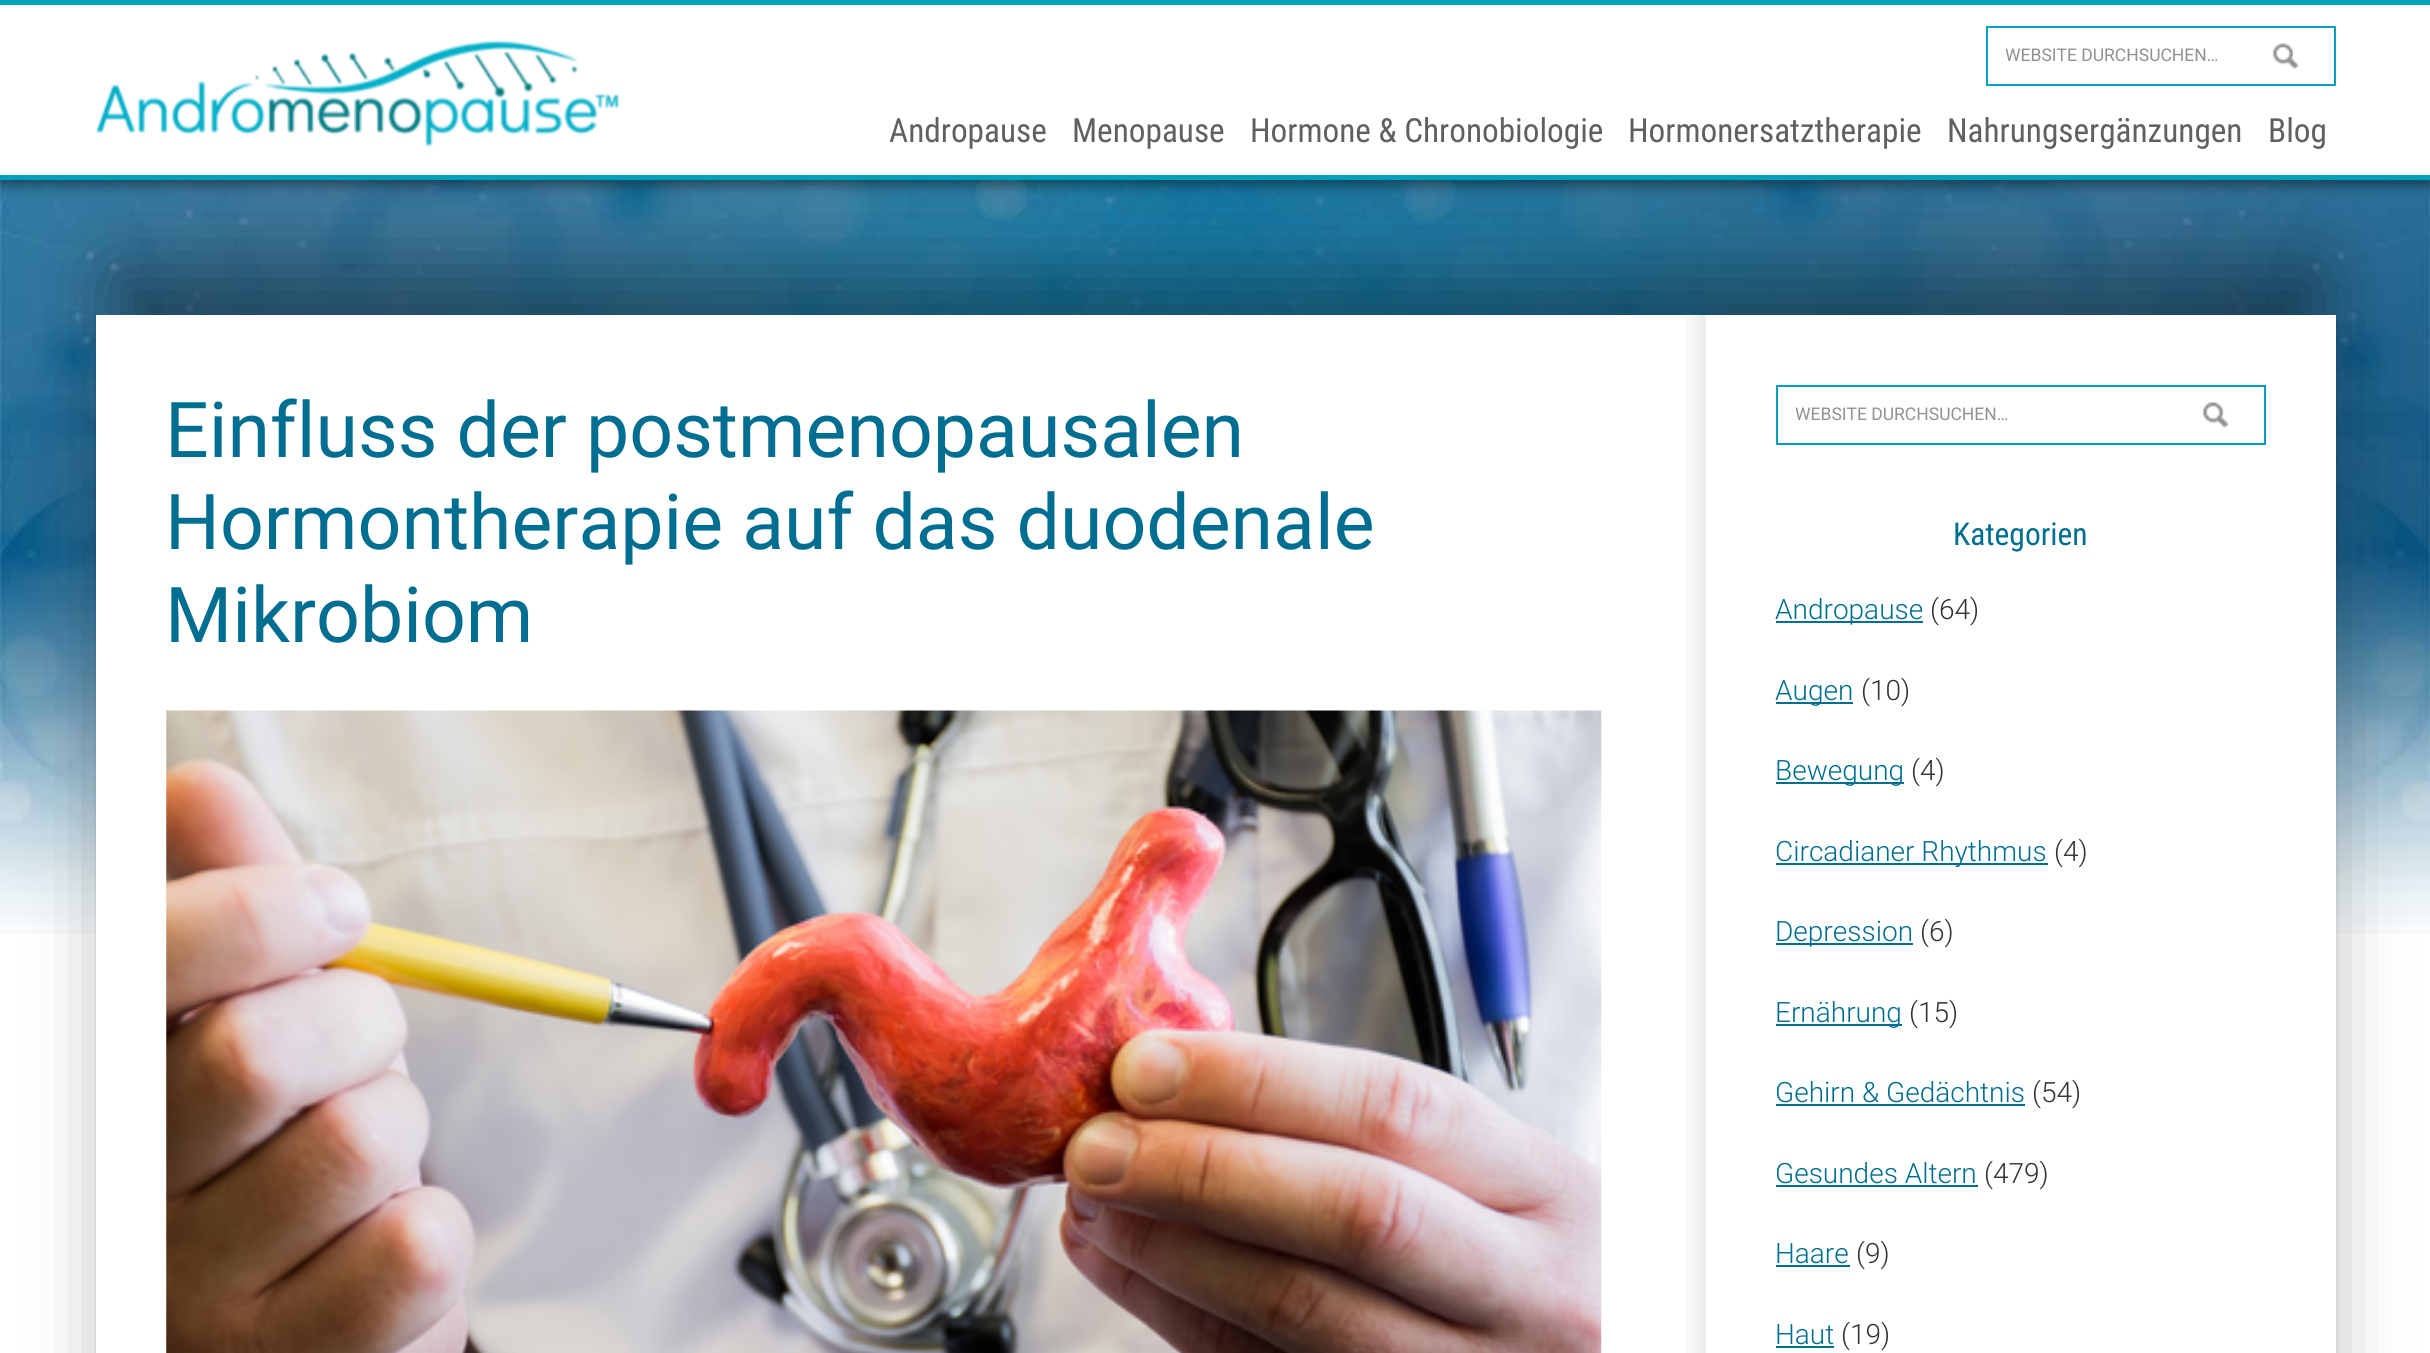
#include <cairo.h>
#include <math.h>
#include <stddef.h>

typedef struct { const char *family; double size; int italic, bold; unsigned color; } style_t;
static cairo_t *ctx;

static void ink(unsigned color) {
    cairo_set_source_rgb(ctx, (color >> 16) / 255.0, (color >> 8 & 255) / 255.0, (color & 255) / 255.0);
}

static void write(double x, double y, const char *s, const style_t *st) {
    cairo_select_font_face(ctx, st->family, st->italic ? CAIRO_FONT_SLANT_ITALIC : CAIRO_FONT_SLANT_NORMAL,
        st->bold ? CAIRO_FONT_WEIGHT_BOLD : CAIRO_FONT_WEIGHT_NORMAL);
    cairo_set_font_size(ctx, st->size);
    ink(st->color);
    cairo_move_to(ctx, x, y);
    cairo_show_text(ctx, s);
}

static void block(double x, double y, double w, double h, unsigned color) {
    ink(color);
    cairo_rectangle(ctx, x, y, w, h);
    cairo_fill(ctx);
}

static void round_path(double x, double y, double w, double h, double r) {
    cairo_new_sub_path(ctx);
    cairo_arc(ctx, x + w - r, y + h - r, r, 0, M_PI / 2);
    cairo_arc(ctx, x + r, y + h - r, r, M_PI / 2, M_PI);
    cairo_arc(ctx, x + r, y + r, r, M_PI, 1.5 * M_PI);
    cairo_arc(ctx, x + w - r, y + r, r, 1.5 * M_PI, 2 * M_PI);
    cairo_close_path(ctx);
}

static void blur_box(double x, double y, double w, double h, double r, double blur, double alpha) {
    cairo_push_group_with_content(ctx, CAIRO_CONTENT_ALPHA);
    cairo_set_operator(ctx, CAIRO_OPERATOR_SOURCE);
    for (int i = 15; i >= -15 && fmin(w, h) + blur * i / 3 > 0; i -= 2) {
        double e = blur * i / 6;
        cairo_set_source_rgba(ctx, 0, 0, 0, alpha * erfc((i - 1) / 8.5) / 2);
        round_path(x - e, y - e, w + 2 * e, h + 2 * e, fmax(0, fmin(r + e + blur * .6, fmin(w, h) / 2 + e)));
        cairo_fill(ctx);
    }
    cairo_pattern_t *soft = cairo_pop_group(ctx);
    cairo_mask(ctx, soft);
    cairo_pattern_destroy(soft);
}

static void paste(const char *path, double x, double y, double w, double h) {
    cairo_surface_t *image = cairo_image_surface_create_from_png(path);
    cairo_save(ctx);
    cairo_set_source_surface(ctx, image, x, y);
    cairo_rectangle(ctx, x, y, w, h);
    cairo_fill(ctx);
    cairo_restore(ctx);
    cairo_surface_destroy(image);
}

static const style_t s1 = {"Roboto", 17.5, 0, 0, 0x919191};
static const style_t s2 = {"Roboto Condensed", 33.25, 0, 0, 0x606060};
static const style_t s3 = {"Roboto", 77, 0, 0, 0x006e90};
static const style_t s4 = {"Roboto Condensed", 31.5, 0, 0, 0x006e90};
static const style_t s5 = {"Roboto Light", 28, 0, 0, 0x006e90};
static const style_t s6 = {"Roboto Light", 28, 0, 0, 0x333333};

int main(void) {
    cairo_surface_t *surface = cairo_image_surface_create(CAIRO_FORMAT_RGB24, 2430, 1353);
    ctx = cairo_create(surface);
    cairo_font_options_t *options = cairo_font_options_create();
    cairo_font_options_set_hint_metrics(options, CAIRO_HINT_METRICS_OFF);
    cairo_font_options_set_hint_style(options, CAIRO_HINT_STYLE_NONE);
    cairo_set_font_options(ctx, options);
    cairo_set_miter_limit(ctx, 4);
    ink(0xffffff);
    cairo_paint(ctx);
    paste("pic1.png", 0, 180, 2430, 754);
    ink(0x000000);
    blur_box(0, 4, 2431, 180, 0, 7, 0.5);
    blur_box(114, 271, 2205, 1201, 0, 39.5, 0.4);
    block(0, 5, 2430, 170, 0xffffff);
    block(0, 0, 2430, 5, 0x00a2bb);
    block(0, 175, 2430, 5, 0x00a2bb);
    paste("pic2.png", 96, 40, 524, 107);
    paste("pic3.png", 2272, 43, 27, 26);
    cairo_rectangle(ctx, 1987, 27, 348, 58);
    cairo_stroke(ctx);
    cairo_save(ctx);
    cairo_rectangle(ctx, 2006, 46, 311, 19);
    cairo_clip(ctx);
    write(2005, 61, "WEBSITE DURCHSUCHEN…", &s1);
    cairo_restore(ctx);
    write(889, 142, "Andropause", &s2);
    write(1072, 142, "Menopause", &s2);
    write(1250, 142, "Hormone & Chronobiologie", &s2);
    write(1628, 142, "Hormonersatztherapie", &s2);
    write(1947, 142, "Nahrungsergänzungen", &s2);
    write(2268, 142, "Blog", &s2);
    block(96, 315, 2240, 1038, 0xffffff);
    write(165, 457, "Einfluss der postmenopausalen", &s3);
    write(165, 549, "Hormontherapie auf das duodenale", &s3);
    write(165, 642, "Mikrobiom", &s3);
    paste("pic4.png", 166, 710, 1436, 643);
    cairo_save(ctx);
    cairo_rectangle(ctx, 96, 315, 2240, 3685);
    cairo_clip(ctx);
    cairo_rectangle(ctx, 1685, 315, 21, 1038);
    cairo_clip(ctx);
    ink(0x000000);
    blur_box(1696, 313, 633, 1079, 0, 13, 0.1);
    cairo_restore(ctx);
    block(1706, 350, 1, 1003, 0xffffff);
    paste("pic5.png", 2202, 402, 27, 26);
    cairo_rectangle(ctx, 1777, 386, 488, 58);
    ink(0x00a2bb);
    cairo_stroke(ctx);
    cairo_save(ctx);
    cairo_rectangle(ctx, 1796, 404, 451, 20);
    cairo_clip(ctx);
    write(1795, 420, "WEBSITE DURCHSUCHEN…", &s1);
    cairo_restore(ctx);
    write(1953, 545, "Kategorien", &s4);
    block(1776, 621, 147, 2, 0x006e90);
    write(1775, 619, "Andropause", &s5);
    write(1930, 619, "(64)", &s6);
    block(1776, 702, 77, 2, 0x006e90);
    write(1775, 700, "Augen", &s5);
    write(1861, 700, "(10)", &s6);
    block(1776, 782, 128, 2, 0x006e90);
    write(1775, 780, "Bewegung", &s5);
    write(1911, 780, "(4)", &s6);
    block(1776, 863, 272, 2, 0x006e90);
    write(1775, 861, "Circadianer Rhythmus", &s5);
    write(2054, 861, "(4)", &s6);
    block(1776, 943, 137, 2, 0x006e90);
    write(1775, 941, "Depression", &s5);
    write(1920, 941, "(6)", &s6);
    block(1776, 1024, 126, 2, 0x006e90);
    write(1775, 1022, "Ernährung", &s5);
    write(1909, 1022, "(15)", &s6);
    write(1775, 1102, "Gehirn & Gedächtnis", &s5);
    block(1776, 1104, 249, 2, 0x006e90);
    write(2032, 1102, "(54)", &s6);
    write(1775, 1183, "Gesundes Altern", &s5);
    block(1776, 1185, 202, 2, 0x006e90);
    write(1984, 1183, "(479)", &s6);
    write(1775, 1263, "Haare", &s5);
    block(1776, 1265, 74, 2, 0x006e90);
    write(1856, 1263, "(9)", &s6);
    write(1775, 1344, "Haut", &s5);
    block(1776, 1346, 58, 2, 0x006e90);
    write(1841, 1344, "(19)", &s6);
    cairo_surface_write_to_png(surface, "screenshot.png");
    cairo_font_options_destroy(options);
    cairo_destroy(ctx);
    cairo_surface_destroy(surface);
    return 0;
}
